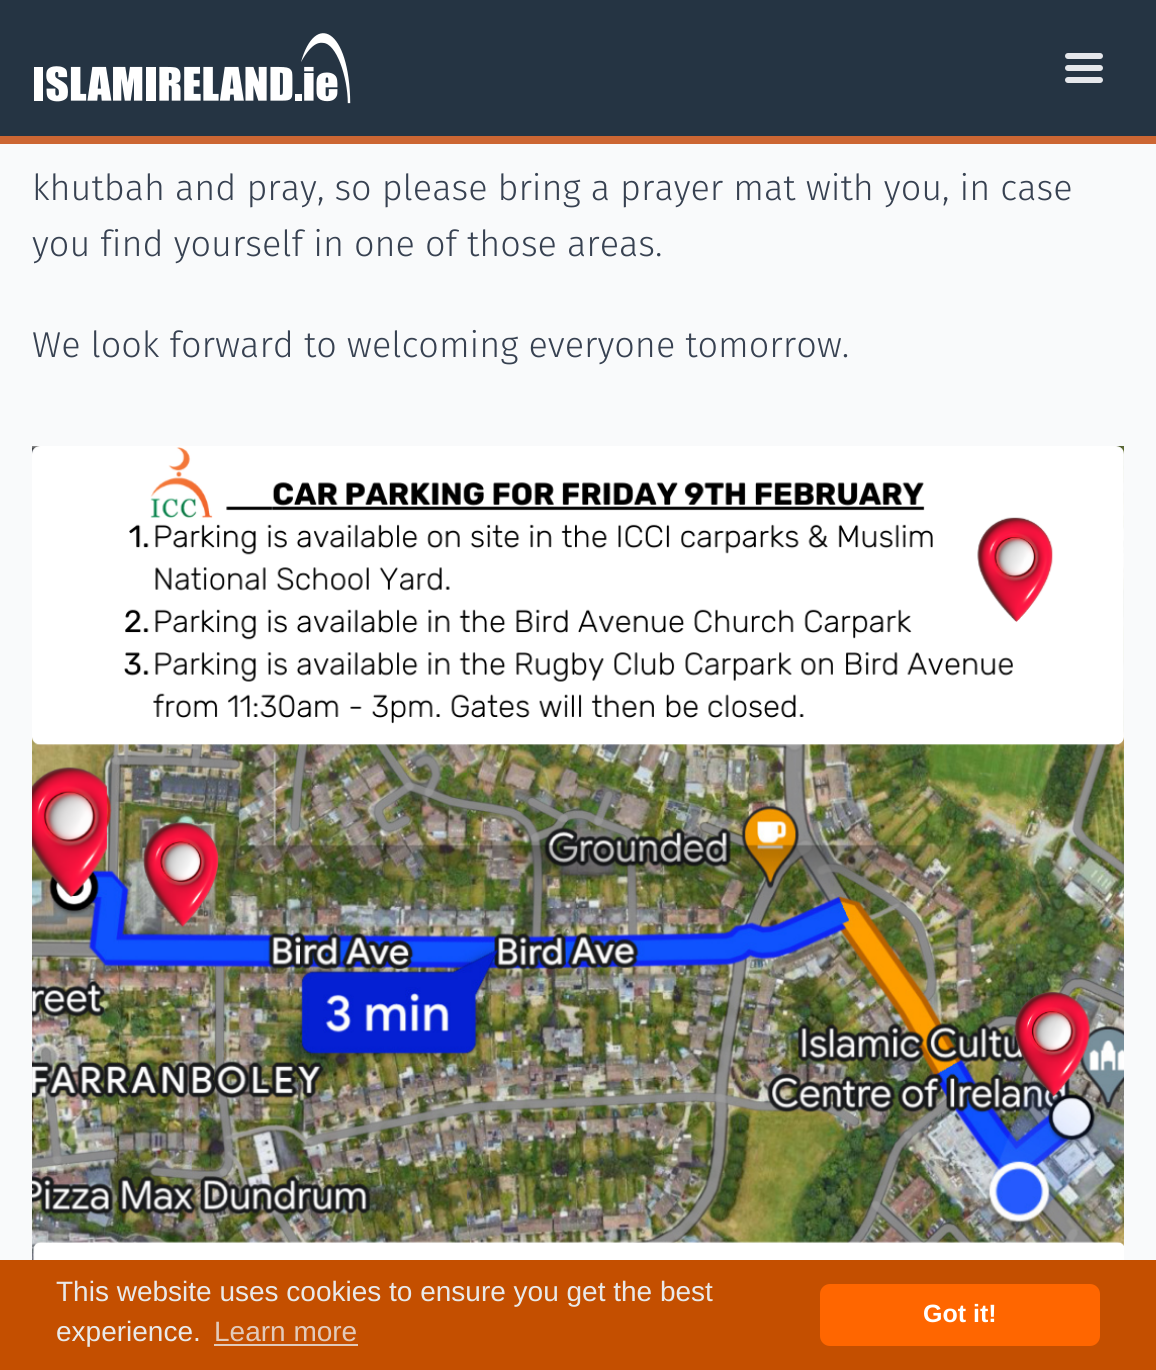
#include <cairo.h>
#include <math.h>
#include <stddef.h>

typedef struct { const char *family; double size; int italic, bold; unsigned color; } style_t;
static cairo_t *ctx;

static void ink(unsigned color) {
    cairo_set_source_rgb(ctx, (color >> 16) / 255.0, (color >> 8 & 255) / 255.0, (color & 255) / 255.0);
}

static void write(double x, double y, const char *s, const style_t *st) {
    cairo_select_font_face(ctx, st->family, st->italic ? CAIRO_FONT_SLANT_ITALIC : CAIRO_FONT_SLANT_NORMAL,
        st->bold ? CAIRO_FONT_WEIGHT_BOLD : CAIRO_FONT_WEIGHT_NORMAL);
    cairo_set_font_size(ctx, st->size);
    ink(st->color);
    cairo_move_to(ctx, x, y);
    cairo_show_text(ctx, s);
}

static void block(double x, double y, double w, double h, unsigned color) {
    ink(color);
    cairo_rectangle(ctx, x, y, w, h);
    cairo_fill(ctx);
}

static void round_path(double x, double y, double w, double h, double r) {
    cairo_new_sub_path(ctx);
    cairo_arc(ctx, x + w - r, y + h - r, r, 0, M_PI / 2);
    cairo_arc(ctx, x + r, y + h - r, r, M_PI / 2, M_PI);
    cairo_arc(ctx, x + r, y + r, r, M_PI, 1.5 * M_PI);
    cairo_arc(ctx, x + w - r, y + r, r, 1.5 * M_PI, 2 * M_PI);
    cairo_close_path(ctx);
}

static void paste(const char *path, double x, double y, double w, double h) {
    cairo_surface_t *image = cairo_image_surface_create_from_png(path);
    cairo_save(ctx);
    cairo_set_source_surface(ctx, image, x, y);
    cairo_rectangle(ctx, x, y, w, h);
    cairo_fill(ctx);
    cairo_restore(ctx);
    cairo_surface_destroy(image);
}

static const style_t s1 = {"Fira Sans Light", 36, 0, 0, 0x374151};
static const style_t s2 = {"Liberation Sans", 28, 0, 0, 0xe9e9e9};
static const style_t s3 = {"Liberation Sans", 28, 0, 0, 0xe2caba};
static const style_t s4 = {"Liberation Sans", 25, 0, 1, 0xffffff};

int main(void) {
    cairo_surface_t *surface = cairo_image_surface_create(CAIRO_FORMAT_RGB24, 1156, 1370);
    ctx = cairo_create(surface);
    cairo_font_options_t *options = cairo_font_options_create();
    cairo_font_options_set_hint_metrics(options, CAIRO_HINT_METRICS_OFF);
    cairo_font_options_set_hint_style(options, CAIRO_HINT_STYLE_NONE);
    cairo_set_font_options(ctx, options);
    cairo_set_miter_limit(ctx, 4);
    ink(0xf9fafb);
    cairo_paint(ctx);
    block(0, 0, 1156, 136, 0x253443);
    block(0, 136, 1156, 8, 0xcc6633);
    paste("pic1.png", 34, 33, 317, 71);
    paste("pic2.png", 1065, 53, 38, 30);
    write(32, 200, "khutbah and pray, so please bring a prayer mat with you, in case", &s1);
    write(32, 256, "you find yourself in one of those areas.", &s1);
    write(32, 357, "We look forward to welcoming everyone tomorrow.", &s1);
    paste("pic3.png", 32, 446, 1092, 814);
    block(0, 1260, 1156, 110, 0xc44f00);
    write(56, 1301, "This website uses cookies to ensure you get the best", &s2);
    write(56, 1341, "experience.", &s2);
    write(214, 1341, "Learn more", &s3);
    block(214, 1344, 144, 2, 0xe2caba);
    ink(0xff6600);
    round_path(820, 1284, 280, 62, 10);
    cairo_fill(ctx);
    write(923, 1322, "Got it!", &s4);
    cairo_surface_write_to_png(surface, "screenshot.png");
    cairo_font_options_destroy(options);
    cairo_destroy(ctx);
    cairo_surface_destroy(surface);
    return 0;
}
